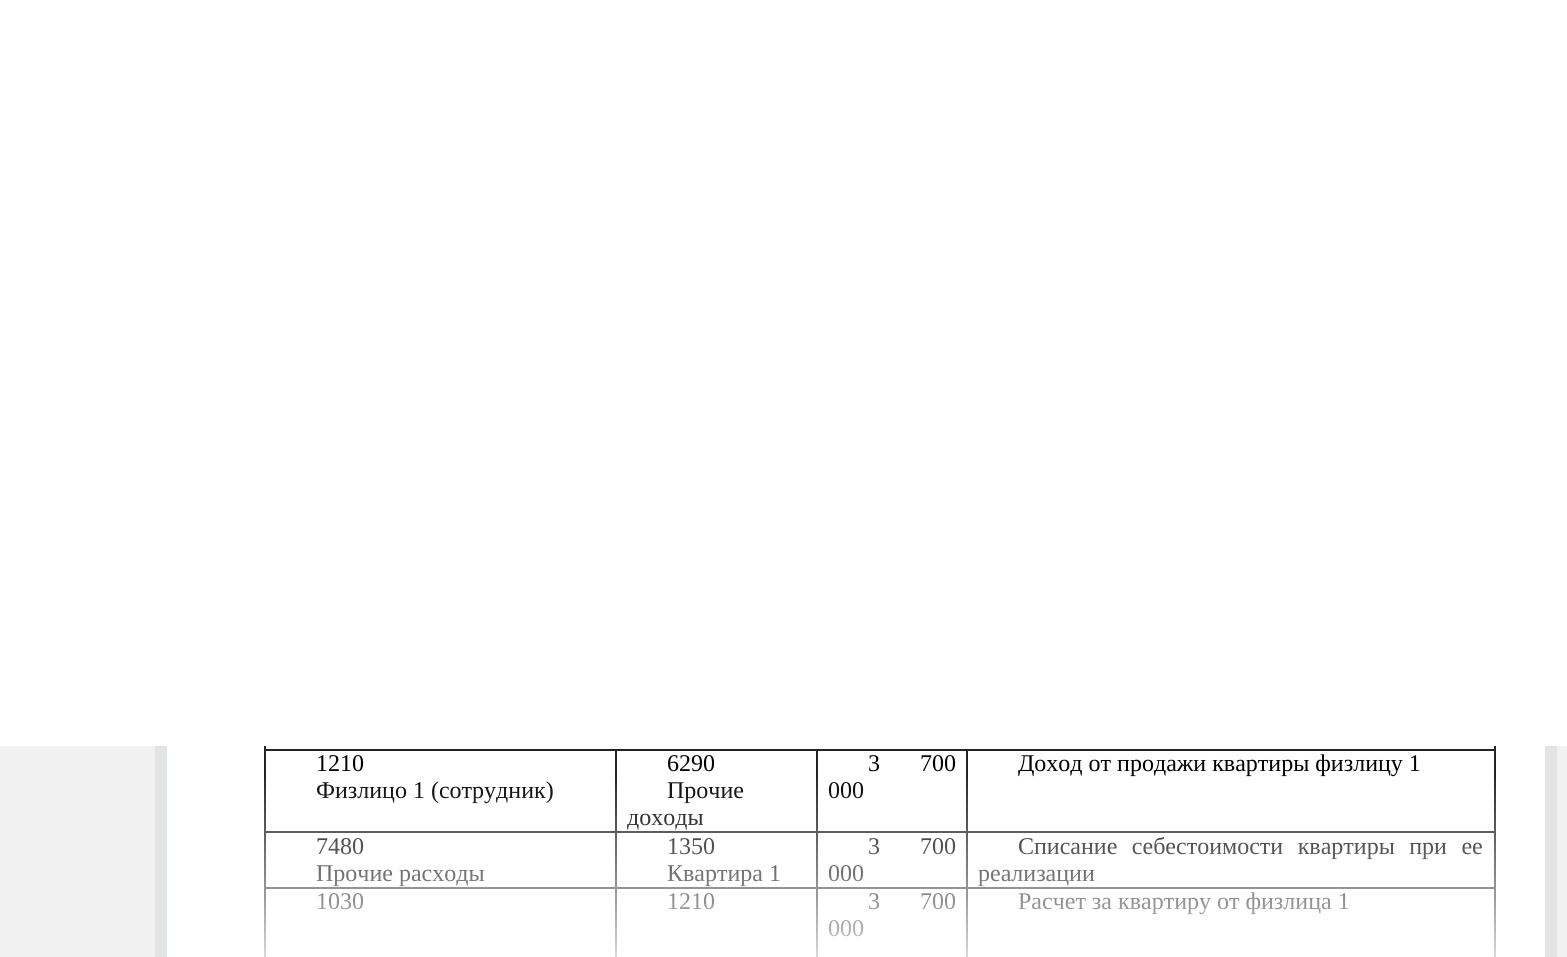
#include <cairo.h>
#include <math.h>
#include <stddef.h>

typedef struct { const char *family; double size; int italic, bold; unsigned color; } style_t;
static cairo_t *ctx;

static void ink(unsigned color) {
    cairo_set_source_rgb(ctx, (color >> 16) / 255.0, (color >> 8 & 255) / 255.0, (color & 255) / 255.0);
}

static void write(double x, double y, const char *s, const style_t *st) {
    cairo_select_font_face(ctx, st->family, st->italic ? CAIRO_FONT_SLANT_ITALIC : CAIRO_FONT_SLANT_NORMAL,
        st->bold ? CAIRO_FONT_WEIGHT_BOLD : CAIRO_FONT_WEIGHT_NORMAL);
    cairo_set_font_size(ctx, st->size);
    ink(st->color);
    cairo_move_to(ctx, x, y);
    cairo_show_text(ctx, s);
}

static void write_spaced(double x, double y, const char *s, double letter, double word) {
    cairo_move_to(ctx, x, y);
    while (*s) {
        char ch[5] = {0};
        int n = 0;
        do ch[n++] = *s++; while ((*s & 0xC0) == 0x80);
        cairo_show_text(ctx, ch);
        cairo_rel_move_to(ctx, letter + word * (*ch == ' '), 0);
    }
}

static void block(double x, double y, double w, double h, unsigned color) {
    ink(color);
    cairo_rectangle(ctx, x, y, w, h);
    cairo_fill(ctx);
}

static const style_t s1 = {"Liberation Serif", 24, 0, 0, 0x000000};

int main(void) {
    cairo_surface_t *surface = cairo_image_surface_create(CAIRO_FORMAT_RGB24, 1567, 957);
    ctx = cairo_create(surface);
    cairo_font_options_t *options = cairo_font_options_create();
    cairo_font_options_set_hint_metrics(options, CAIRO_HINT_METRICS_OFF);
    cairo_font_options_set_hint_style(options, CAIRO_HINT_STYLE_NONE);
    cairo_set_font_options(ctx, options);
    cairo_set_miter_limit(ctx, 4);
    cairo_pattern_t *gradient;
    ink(0xf1f1f1);
    cairo_paint(ctx);
    block(167, 746, 1378, 211, 0xffffff);
    cairo_rectangle(ctx, 161, -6, 1390, 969);
    ink(0xe3e5e4);
    cairo_set_line_width(ctx, 12);
    cairo_stroke(ctx);
    block(0, 0, 1567, 746, 0xffffff);
    block(966, 887, 2, 70, 0x212529);
    block(1494, 746, 2, 211, 0x212529);
    block(966, 887, 530, 2, 0x212529);
    block(966, 831, 2, 57, 0x212529);
    block(966, 831, 530, 2, 0x212529);
    block(966, 749, 2, 84, 0x212529);
    block(816, 887, 2, 70, 0x212529);
    block(816, 887, 152, 2, 0x212529);
    block(816, 831, 2, 57, 0x212529);
    block(816, 831, 152, 2, 0x212529);
    block(816, 749, 2, 84, 0x212529);
    block(615, 887, 2, 70, 0x212529);
    block(615, 887, 203, 2, 0x212529);
    block(615, 831, 2, 57, 0x212529);
    block(615, 831, 203, 2, 0x212529);
    block(615, 749, 2, 84, 0x212529);
    block(264, 887, 2, 70, 0x212529);
    block(264, 887, 353, 2, 0x212529);
    block(264, 831, 2, 57, 0x212529);
    block(264, 831, 353, 2, 0x212529);
    block(264, 749, 2, 84, 0x212529);
    block(264, 749, 1232, 2, 0x212529);
    block(264, 746, 2, 4, 0x212529);
    write(316, 771, "1210", &s1);
    write(316, 798, "Физлицо 1 (сотрудник)", &s1);
    write(667, 771, "6290", &s1);
    write(667, 798, "Прочие", &s1);
    write(627, 825, "доходы", &s1);
    write_spaced(868, 771, "3 700", 0, 34);
    write(828, 798, "000", &s1);
    write(1018, 771, "Доход от продажи квартиры физлицу 1", &s1);
    write(316, 854, "7480", &s1);
    write(316, 881, "Прочие расходы", &s1);
    write(667, 854, "1350", &s1);
    write(667, 881, "Квартира 1", &s1);
    write_spaced(868, 854, "3 700", 0, 34);
    write(828, 881, "000", &s1);
    write_spaced(1018, 854, "Списание себестоимости квартиры при ее", 0, 8.5);
    write(978, 881, "реализации", &s1);
    write(316, 909, "1030", &s1);
    write(667, 909, "1210", &s1);
    write_spaced(868, 909, "3 700", 0, 34);
    write(828, 936, "000", &s1);
    write(1018, 909, "Расчет за квартиру от физлица 1", &s1);
    gradient = cairo_pattern_create_linear(842, 773, 842, 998);
    cairo_pattern_add_color_stop_rgba(gradient, 0, 1, 1, 1, 0);
    cairo_pattern_add_color_stop_rgba(gradient, 1, 1, 1, 1, 1);
    cairo_set_source(ctx, gradient);
    cairo_pattern_destroy(gradient);
    cairo_rectangle(ctx, 264, 778, 1232, 179);
    cairo_fill(ctx);
    cairo_surface_write_to_png(surface, "screenshot.png");
    cairo_font_options_destroy(options);
    cairo_destroy(ctx);
    cairo_surface_destroy(surface);
    return 0;
}
